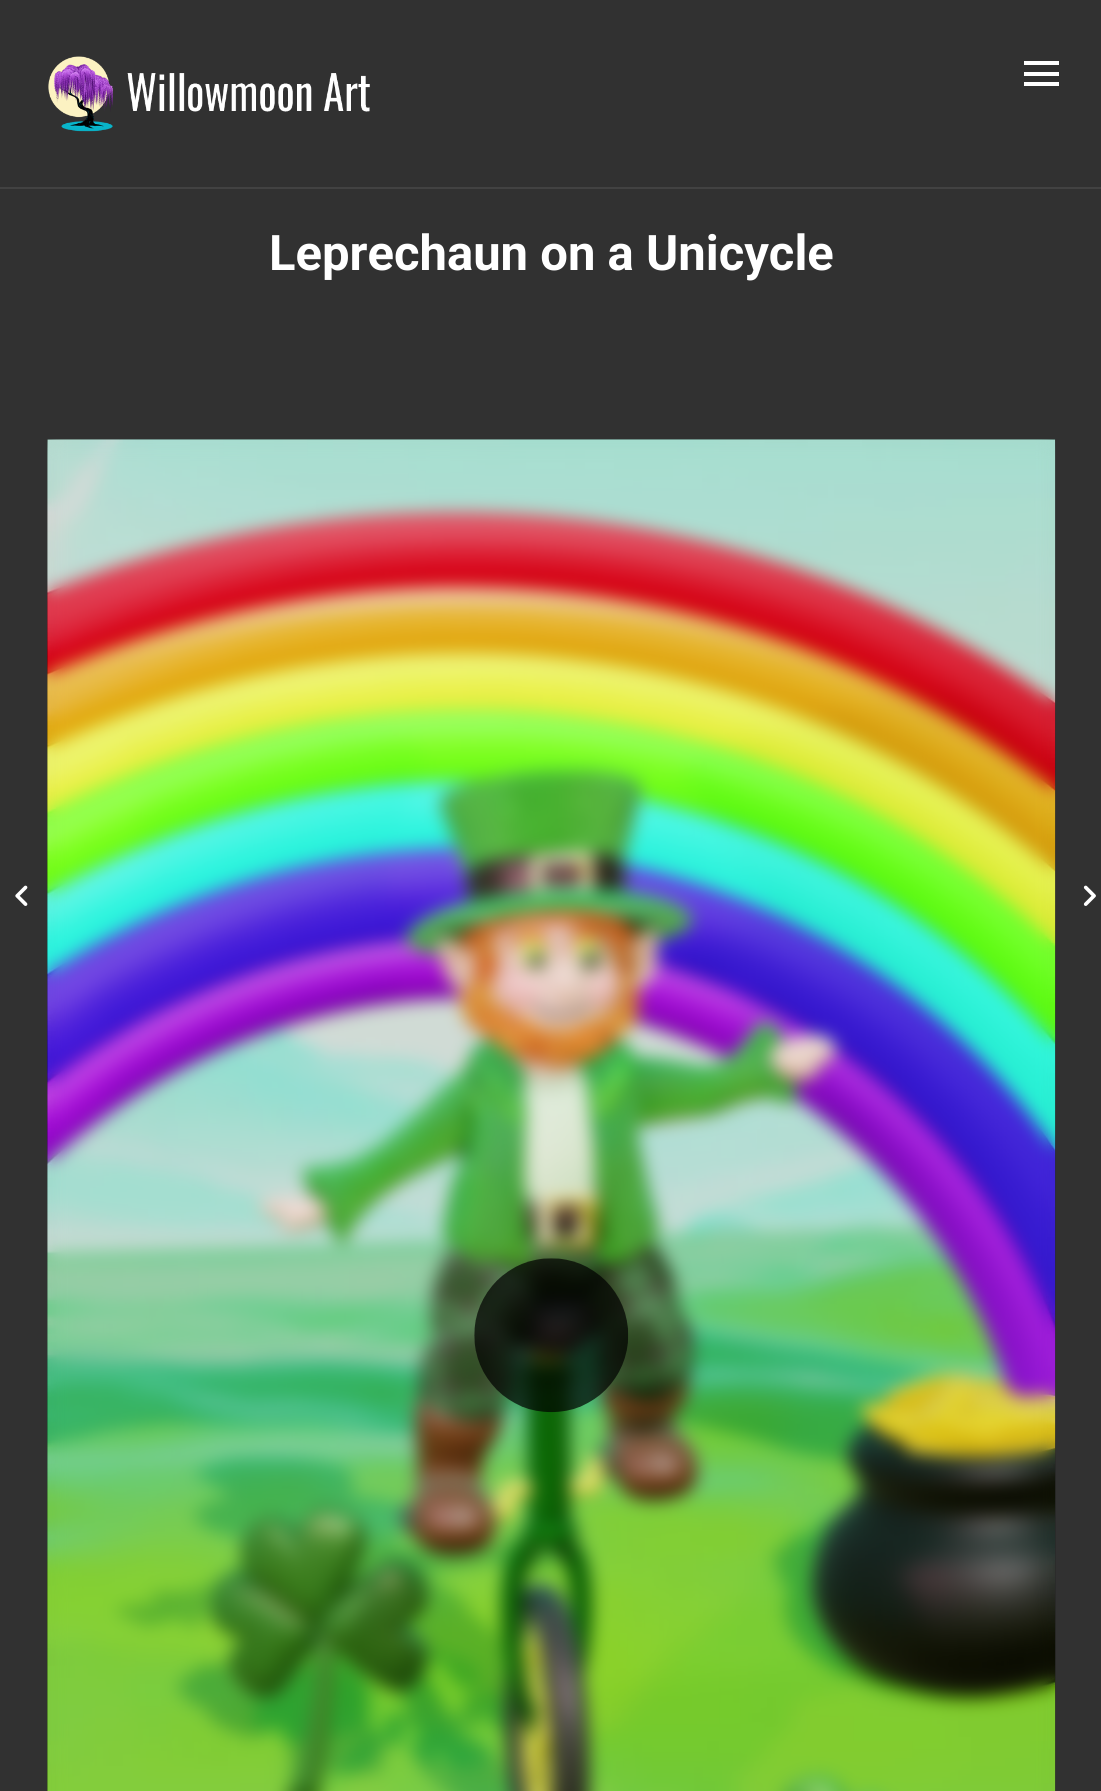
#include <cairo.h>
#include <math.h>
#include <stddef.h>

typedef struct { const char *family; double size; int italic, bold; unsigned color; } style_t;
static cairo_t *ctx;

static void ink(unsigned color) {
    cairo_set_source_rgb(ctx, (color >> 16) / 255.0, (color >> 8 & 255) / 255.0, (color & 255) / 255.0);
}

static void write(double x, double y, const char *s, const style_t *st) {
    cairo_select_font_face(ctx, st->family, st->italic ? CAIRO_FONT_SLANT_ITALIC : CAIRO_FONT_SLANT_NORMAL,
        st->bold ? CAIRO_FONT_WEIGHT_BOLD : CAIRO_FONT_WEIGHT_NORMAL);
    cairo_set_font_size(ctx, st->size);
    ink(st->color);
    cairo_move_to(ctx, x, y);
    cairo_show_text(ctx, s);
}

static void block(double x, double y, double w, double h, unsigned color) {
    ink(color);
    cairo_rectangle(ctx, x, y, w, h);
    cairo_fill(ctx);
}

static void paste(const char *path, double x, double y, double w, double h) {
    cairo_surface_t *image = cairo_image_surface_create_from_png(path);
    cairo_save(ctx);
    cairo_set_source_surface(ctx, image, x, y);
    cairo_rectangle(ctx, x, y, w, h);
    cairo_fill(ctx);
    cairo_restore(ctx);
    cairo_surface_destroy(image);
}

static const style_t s1 = {"Roboto", 49, 0, 1, 0xffffff};

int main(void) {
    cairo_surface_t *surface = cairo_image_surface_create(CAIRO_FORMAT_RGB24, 1101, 1791);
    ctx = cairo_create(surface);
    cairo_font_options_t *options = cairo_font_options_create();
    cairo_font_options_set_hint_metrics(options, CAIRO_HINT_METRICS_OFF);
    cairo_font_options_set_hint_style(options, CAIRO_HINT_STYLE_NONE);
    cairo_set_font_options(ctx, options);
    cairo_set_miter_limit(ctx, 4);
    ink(0x313131);
    cairo_paint(ctx);
    block(0, 187, 1101, 2, 0x424242);
    paste("pic1.png", 48, 56, 322, 76);
    block(1024, 61, 35, 4, 0xffffff);
    block(1024, 72, 35, 4, 0xffffff);
    block(1024, 82, 35, 4, 0xffffff);
    write(269, 270, "Leprechaun on a Unicycle", &s1);
    paste("pic2.png", 47, 439, 1009, 1352);
    paste("pic3.png", 15, 885, 13, 21);
    paste("pic4.png", 1083, 885, 13, 21);
    cairo_surface_write_to_png(surface, "screenshot.png");
    cairo_font_options_destroy(options);
    cairo_destroy(ctx);
    cairo_surface_destroy(surface);
    return 0;
}
